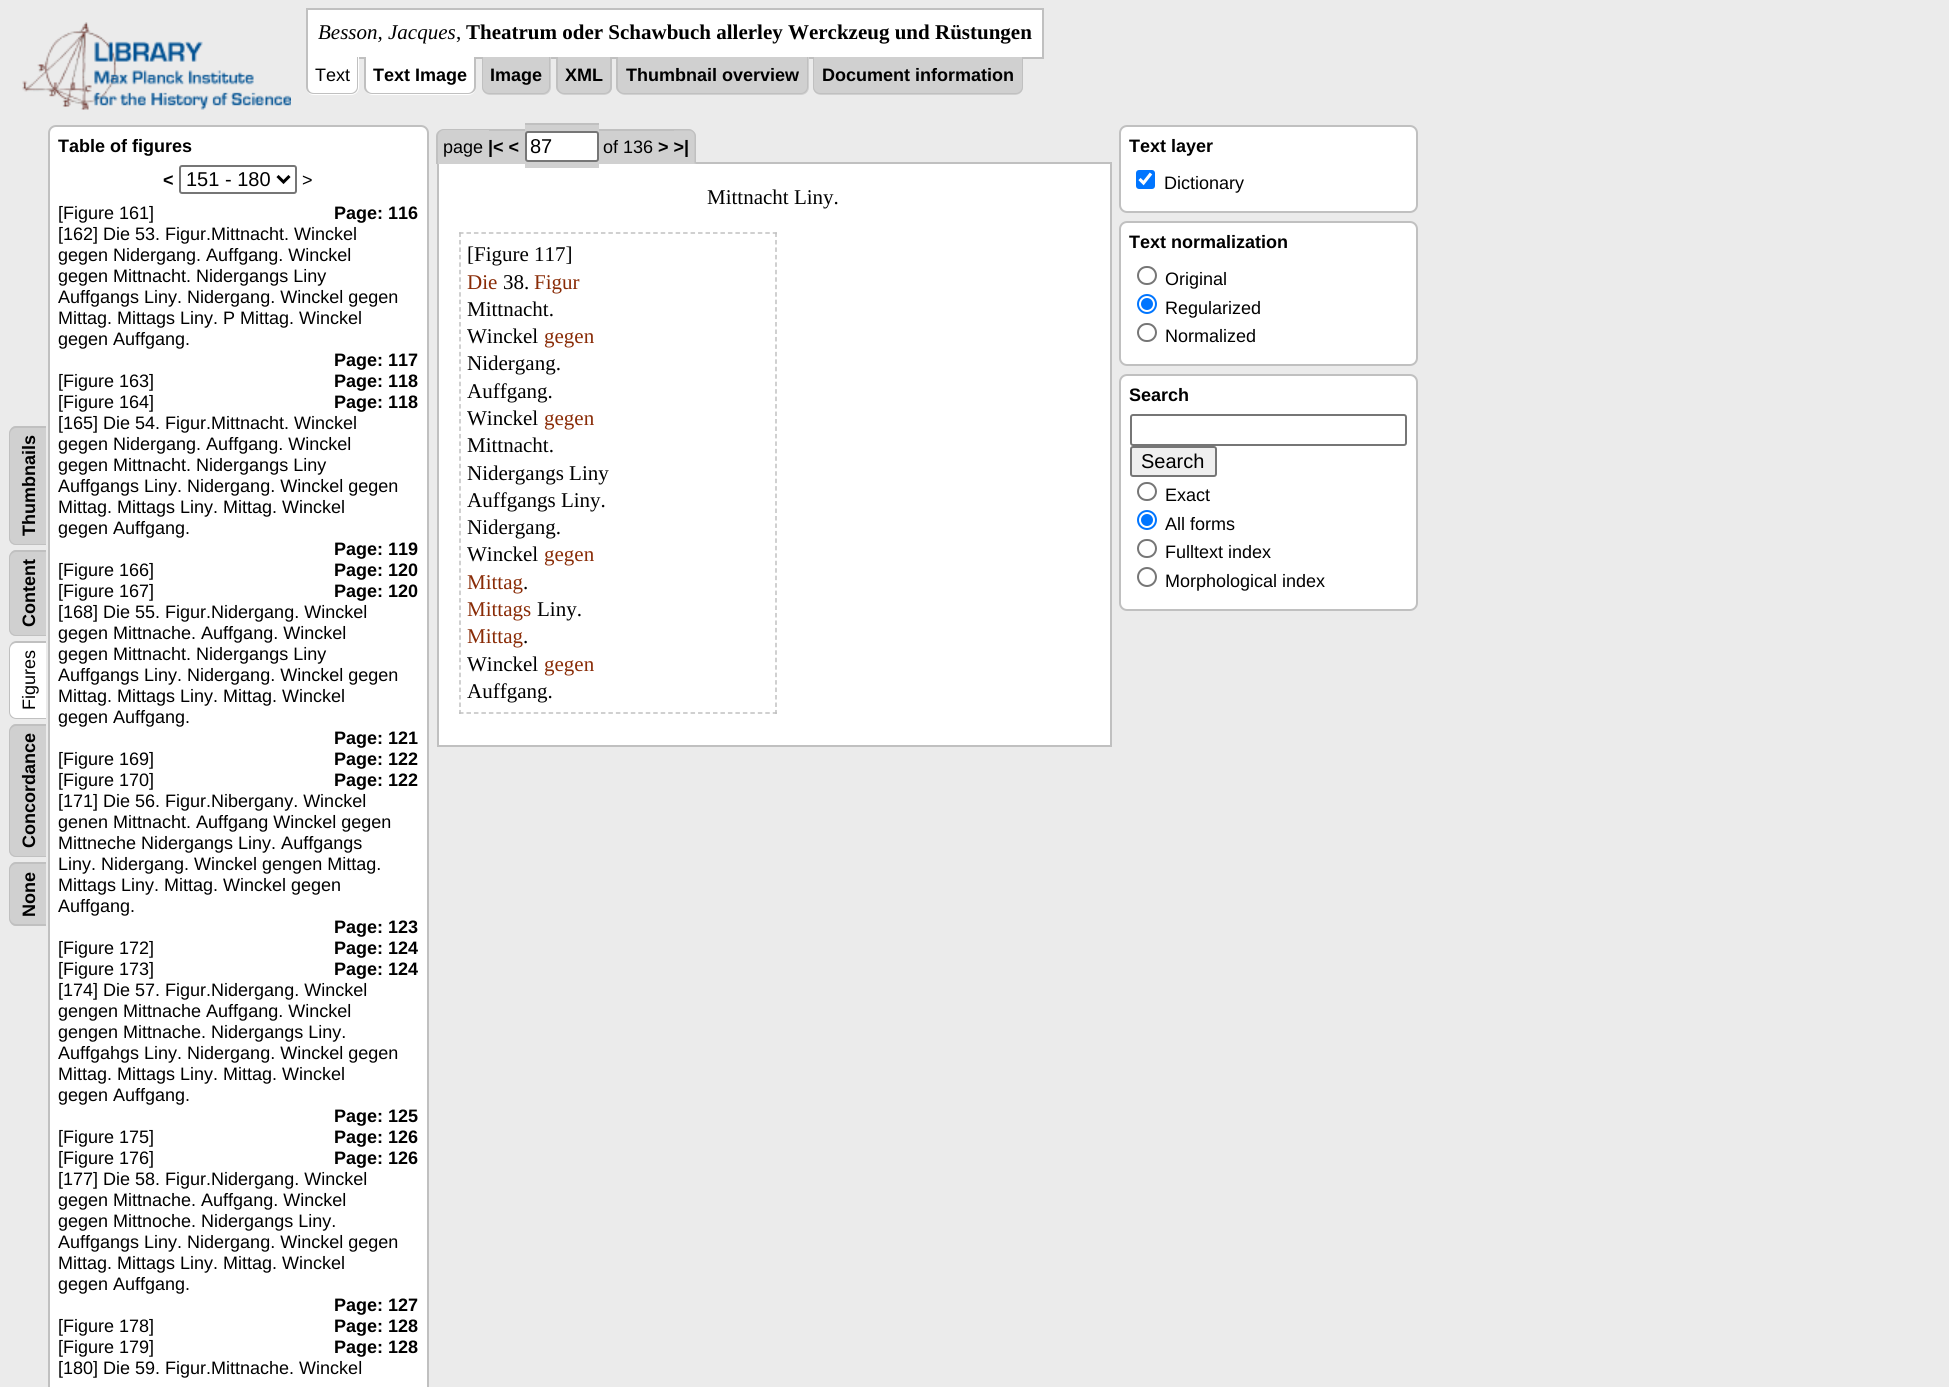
#include <cairo.h>
#include <math.h>
#include <stddef.h>

typedef struct { const char *family; double size; int italic, bold; unsigned color; } style_t;
static cairo_t *ctx;

static void ink(unsigned color) {
    cairo_set_source_rgb(ctx, (color >> 16) / 255.0, (color >> 8 & 255) / 255.0, (color & 255) / 255.0);
}

static void write(double x, double y, const char *s, const style_t *st) {
    cairo_select_font_face(ctx, st->family, st->italic ? CAIRO_FONT_SLANT_ITALIC : CAIRO_FONT_SLANT_NORMAL,
        st->bold ? CAIRO_FONT_WEIGHT_BOLD : CAIRO_FONT_WEIGHT_NORMAL);
    cairo_set_font_size(ctx, st->size);
    ink(st->color);
    cairo_move_to(ctx, x, y);
    cairo_show_text(ctx, s);
}

static void block(double x, double y, double w, double h, unsigned color) {
    ink(color);
    cairo_rectangle(ctx, x, y, w, h);
    cairo_fill(ctx);
}

static void round_path(double x, double y, double w, double h, double r) {
    cairo_new_sub_path(ctx);
    cairo_arc(ctx, x + w - r, y + h - r, r, 0, M_PI / 2);
    cairo_arc(ctx, x + r, y + h - r, r, M_PI / 2, M_PI);
    cairo_arc(ctx, x + r, y + r, r, M_PI, 1.5 * M_PI);
    cairo_arc(ctx, x + w - r, y + r, r, 1.5 * M_PI, 2 * M_PI);
    cairo_close_path(ctx);
}

static void paste(const char *path, double x, double y, double w, double h) {
    cairo_surface_t *image = cairo_image_surface_create_from_png(path);
    cairo_save(ctx);
    cairo_set_source_surface(ctx, image, x, y);
    cairo_rectangle(ctx, x, y, w, h);
    cairo_fill(ctx);
    cairo_restore(ctx);
    cairo_surface_destroy(image);
}

static const style_t s1 = {"Liberation Serif", 21, 1, 0, 0x000000};
static const style_t s2 = {"Liberation Serif", 21, 0, 0, 0x000000};
static const style_t s3 = {"Liberation Serif", 21, 0, 1, 0x000000};
static const style_t s4 = {"Liberation Sans", 18, 0, 0, 0x000000};
static const style_t s5 = {"Liberation Sans", 18, 0, 1, 0x000000};
static const style_t s6 = {"Liberation Sans", 20, 0, 0, 0x000000};
static const style_t s7 = {"Liberation Serif", 21, 0, 0, 0x892b06};

int main(void) {
    cairo_surface_t *surface = cairo_image_surface_create(CAIRO_FORMAT_RGB24, 1949, 1387);
    ctx = cairo_create(surface);
    cairo_font_options_t *options = cairo_font_options_create();
    cairo_font_options_set_hint_metrics(options, CAIRO_HINT_METRICS_OFF);
    cairo_font_options_set_hint_style(options, CAIRO_HINT_STYLE_NONE);
    cairo_set_font_options(ctx, options);
    cairo_set_miter_limit(ctx, 4);
    ink(0xebebeb);
    cairo_paint(ctx);
    paste("pic1.png", 22, 22, 269, 88);
    ink(0xffffff);
    cairo_rectangle(ctx, 307, 9, 736, 49);
    cairo_fill_preserve(ctx);
    ink(0xc0c0c0);
    cairo_stroke(ctx);
    write(318, 39, "Besson, Jacques", &s1);
    write(456, 39, ",", &s2);
    write(466, 39, "Theatrum oder Schawbuch allerley Werckzeug und Rüstungen", &s3);
    ink(0xffffff);
    cairo_new_path(ctx);
    cairo_move_to(ctx, 306, 57);
    cairo_line_to(ctx, 359, 57);
    cairo_line_to(ctx, 359, 87);
    cairo_curve_to(ctx, 359, 91.5, 355.5, 95, 351, 95);
    cairo_line_to(ctx, 314, 95);
    cairo_curve_to(ctx, 309.5, 95, 306, 91.5, 306, 87);
    cairo_close_path(ctx);
    cairo_fill(ctx);
    ink(0xc0c0c0);
    cairo_set_fill_rule(ctx, CAIRO_FILL_RULE_EVEN_ODD);
    cairo_new_path(ctx);
    cairo_move_to(ctx, 306, 57);
    cairo_line_to(ctx, 358, 57);
    cairo_line_to(ctx, 358, 87);
    cairo_curve_to(ctx, 358, 91, 355, 94, 351, 94);
    cairo_line_to(ctx, 314, 94);
    cairo_curve_to(ctx, 309, 94, 306, 91, 306, 87);
    cairo_close_path(ctx);
    cairo_move_to(ctx, 308, 57);
    cairo_line_to(ctx, 357, 57);
    cairo_line_to(ctx, 357, 87);
    cairo_curve_to(ctx, 357, 90, 354, 93, 351, 93);
    cairo_line_to(ctx, 314, 93);
    cairo_curve_to(ctx, 310, 93, 308, 90, 308, 87);
    cairo_close_path(ctx);
    cairo_fill(ctx);
    write(315, 81, "Text", &s4);
    ink(0xffffff);
    cairo_new_path(ctx);
    cairo_move_to(ctx, 365, 57);
    cairo_line_to(ctx, 476, 57);
    cairo_line_to(ctx, 476, 87);
    cairo_curve_to(ctx, 476, 91.5, 472.5, 95, 468, 95);
    cairo_line_to(ctx, 373, 95);
    cairo_curve_to(ctx, 368.5, 95, 365, 91.5, 365, 87);
    cairo_close_path(ctx);
    cairo_fill(ctx);
    ink(0xc0c0c0);
    cairo_new_path(ctx);
    cairo_move_to(ctx, 364, 57);
    cairo_line_to(ctx, 476, 57);
    cairo_line_to(ctx, 476, 87);
    cairo_curve_to(ctx, 476, 91, 472, 94, 468, 94);
    cairo_line_to(ctx, 372, 94);
    cairo_curve_to(ctx, 368, 94, 364, 91, 364, 87);
    cairo_close_path(ctx);
    cairo_move_to(ctx, 366, 57);
    cairo_line_to(ctx, 474, 57);
    cairo_line_to(ctx, 474, 87);
    cairo_curve_to(ctx, 474, 90, 471, 93, 468, 93);
    cairo_line_to(ctx, 372, 93);
    cairo_curve_to(ctx, 369, 93, 366, 90, 366, 87);
    cairo_close_path(ctx);
    cairo_fill(ctx);
    write(373, 81, "Text Image", &s5);
    ink(0xd0d0d0);
    cairo_new_path(ctx);
    cairo_move_to(ctx, 482, 57);
    cairo_line_to(ctx, 551, 57);
    cairo_line_to(ctx, 551, 87);
    cairo_curve_to(ctx, 551, 91.5, 547.5, 95, 543, 95);
    cairo_line_to(ctx, 490, 95);
    cairo_curve_to(ctx, 485.5, 95, 482, 91.5, 482, 87);
    cairo_close_path(ctx);
    cairo_fill(ctx);
    ink(0xc0c0c0);
    cairo_new_path(ctx);
    cairo_move_to(ctx, 482, 57);
    cairo_line_to(ctx, 550, 57);
    cairo_line_to(ctx, 550, 87);
    cairo_curve_to(ctx, 550, 91, 547, 94, 543, 94);
    cairo_line_to(ctx, 489, 94);
    cairo_curve_to(ctx, 485, 94, 482, 91, 482, 87);
    cairo_close_path(ctx);
    cairo_move_to(ctx, 483, 57);
    cairo_line_to(ctx, 549, 57);
    cairo_line_to(ctx, 549, 87);
    cairo_curve_to(ctx, 549, 90, 546, 93, 543, 93);
    cairo_line_to(ctx, 489, 93);
    cairo_curve_to(ctx, 486, 93, 483, 90, 483, 87);
    cairo_close_path(ctx);
    cairo_fill(ctx);
    write(490, 81, "Image", &s5);
    ink(0xd0d0d0);
    cairo_new_path(ctx);
    cairo_move_to(ctx, 557, 57);
    cairo_line_to(ctx, 612, 57);
    cairo_line_to(ctx, 612, 87);
    cairo_curve_to(ctx, 612, 91.5, 608.5, 95, 604, 95);
    cairo_line_to(ctx, 565, 95);
    cairo_curve_to(ctx, 560.5, 95, 557, 91.5, 557, 87);
    cairo_close_path(ctx);
    cairo_fill(ctx);
    ink(0xc0c0c0);
    cairo_new_path(ctx);
    cairo_move_to(ctx, 556, 57);
    cairo_line_to(ctx, 612, 57);
    cairo_line_to(ctx, 612, 87);
    cairo_curve_to(ctx, 612, 91, 609, 94, 604, 94);
    cairo_line_to(ctx, 564, 94);
    cairo_curve_to(ctx, 560, 94, 556, 91, 556, 87);
    cairo_close_path(ctx);
    cairo_move_to(ctx, 558, 57);
    cairo_line_to(ctx, 610, 57);
    cairo_line_to(ctx, 610, 87);
    cairo_curve_to(ctx, 610, 90, 608, 93, 604, 93);
    cairo_line_to(ctx, 564, 93);
    cairo_curve_to(ctx, 561, 93, 558, 90, 558, 87);
    cairo_close_path(ctx);
    cairo_fill(ctx);
    write(565, 81, "XML", &s5);
    ink(0xd0d0d0);
    cairo_new_path(ctx);
    cairo_move_to(ctx, 617, 57);
    cairo_line_to(ctx, 809, 57);
    cairo_line_to(ctx, 809, 87);
    cairo_curve_to(ctx, 809, 91.5, 805.5, 95, 801, 95);
    cairo_line_to(ctx, 625, 95);
    cairo_curve_to(ctx, 620.5, 95, 617, 91.5, 617, 87);
    cairo_close_path(ctx);
    cairo_fill(ctx);
    ink(0xc0c0c0);
    cairo_new_path(ctx);
    cairo_move_to(ctx, 616, 57);
    cairo_line_to(ctx, 808, 57);
    cairo_line_to(ctx, 808, 87);
    cairo_curve_to(ctx, 808, 91, 805, 94, 801, 94);
    cairo_line_to(ctx, 624, 94);
    cairo_curve_to(ctx, 620, 94, 616, 91, 616, 87);
    cairo_close_path(ctx);
    cairo_move_to(ctx, 618, 57);
    cairo_line_to(ctx, 807, 57);
    cairo_line_to(ctx, 807, 87);
    cairo_curve_to(ctx, 807, 90, 804, 93, 801, 93);
    cairo_line_to(ctx, 624, 93);
    cairo_curve_to(ctx, 621, 93, 618, 90, 618, 87);
    cairo_close_path(ctx);
    cairo_fill(ctx);
    write(626, 81, "Thumbnail overview", &s5);
    ink(0xd0d0d0);
    cairo_new_path(ctx);
    cairo_move_to(ctx, 813, 57);
    cairo_line_to(ctx, 1023, 57);
    cairo_line_to(ctx, 1023, 87);
    cairo_curve_to(ctx, 1023, 91.5, 1019.5, 95, 1015, 95);
    cairo_line_to(ctx, 821, 95);
    cairo_curve_to(ctx, 816.5, 95, 813, 91.5, 813, 87);
    cairo_close_path(ctx);
    cairo_fill(ctx);
    ink(0xc0c0c0);
    cairo_new_path(ctx);
    cairo_move_to(ctx, 813, 57);
    cairo_line_to(ctx, 1023, 57);
    cairo_line_to(ctx, 1023, 87);
    cairo_curve_to(ctx, 1023, 91, 1020, 94, 1016, 94);
    cairo_line_to(ctx, 820, 94);
    cairo_curve_to(ctx, 816, 94, 813, 91, 813, 87);
    cairo_close_path(ctx);
    cairo_move_to(ctx, 814, 57);
    cairo_line_to(ctx, 1022, 57);
    cairo_line_to(ctx, 1022, 87);
    cairo_curve_to(ctx, 1022, 90, 1019, 93, 1016, 93);
    cairo_line_to(ctx, 820, 93);
    cairo_curve_to(ctx, 817, 93, 814, 90, 814, 87);
    cairo_close_path(ctx);
    cairo_fill(ctx);
    write(822, 81, "Document information", &s5);
    ink(0xd0d0d0);
    cairo_set_fill_rule(ctx, CAIRO_FILL_RULE_WINDING);
    cairo_new_path(ctx);
    cairo_move_to(ctx, 9, 538);
    cairo_line_to(ctx, 9, 434);
    cairo_curve_to(ctx, 9, 430, 12, 426, 16, 426);
    cairo_line_to(ctx, 46, 426);
    cairo_line_to(ctx, 46, 545);
    cairo_line_to(ctx, 16, 545);
    cairo_curve_to(ctx, 12, 545, 9, 542, 9, 538);
    cairo_close_path(ctx);
    cairo_fill(ctx);
    ink(0xc0c0c0);
    cairo_set_fill_rule(ctx, CAIRO_FILL_RULE_EVEN_ODD);
    cairo_new_path(ctx);
    cairo_move_to(ctx, 9, 538);
    cairo_line_to(ctx, 9, 434);
    cairo_curve_to(ctx, 9, 430, 12, 426, 16, 426);
    cairo_line_to(ctx, 46, 426);
    cairo_line_to(ctx, 46, 545);
    cairo_line_to(ctx, 16, 545);
    cairo_curve_to(ctx, 12, 545, 9, 542, 9, 538);
    cairo_close_path(ctx);
    cairo_move_to(ctx, 10, 538);
    cairo_line_to(ctx, 10, 434);
    cairo_curve_to(ctx, 10, 431, 13, 428, 16, 428);
    cairo_line_to(ctx, 46, 428);
    cairo_line_to(ctx, 46, 544);
    cairo_line_to(ctx, 16, 544);
    cairo_curve_to(ctx, 13, 544, 10, 541, 10, 538);
    cairo_close_path(ctx);
    cairo_fill(ctx);
    cairo_save(ctx);
    cairo_translate(ctx, 35, 536);
    cairo_rotate(ctx, -90 * M_PI / 180);
    write(0, 0, "Thumbnails", &s5);
    cairo_restore(ctx);
    ink(0xd0d0d0);
    cairo_set_fill_rule(ctx, CAIRO_FILL_RULE_WINDING);
    cairo_new_path(ctx);
    cairo_move_to(ctx, 9, 629);
    cairo_line_to(ctx, 9, 558);
    cairo_curve_to(ctx, 9, 554, 12, 550, 16, 550);
    cairo_line_to(ctx, 46, 550);
    cairo_line_to(ctx, 46, 636);
    cairo_line_to(ctx, 16, 636);
    cairo_curve_to(ctx, 12, 636, 9, 633, 9, 629);
    cairo_close_path(ctx);
    cairo_fill(ctx);
    ink(0xc0c0c0);
    cairo_set_fill_rule(ctx, CAIRO_FILL_RULE_EVEN_ODD);
    cairo_new_path(ctx);
    cairo_move_to(ctx, 9, 629);
    cairo_line_to(ctx, 9, 558);
    cairo_curve_to(ctx, 9, 554, 12, 550, 16, 550);
    cairo_line_to(ctx, 46, 550);
    cairo_line_to(ctx, 46, 636);
    cairo_line_to(ctx, 16, 636);
    cairo_curve_to(ctx, 12, 636, 9, 633, 9, 629);
    cairo_close_path(ctx);
    cairo_move_to(ctx, 10, 629);
    cairo_line_to(ctx, 10, 558);
    cairo_curve_to(ctx, 10, 555, 13, 552, 16, 552);
    cairo_line_to(ctx, 46, 552);
    cairo_line_to(ctx, 46, 635);
    cairo_line_to(ctx, 16, 635);
    cairo_curve_to(ctx, 13, 635, 10, 632, 10, 629);
    cairo_close_path(ctx);
    cairo_fill(ctx);
    cairo_save(ctx);
    cairo_translate(ctx, 35, 627);
    cairo_rotate(ctx, -90 * M_PI / 180);
    write(0, 0, "Content", &s5);
    cairo_restore(ctx);
    ink(0xffffff);
    cairo_set_fill_rule(ctx, CAIRO_FILL_RULE_WINDING);
    cairo_new_path(ctx);
    cairo_move_to(ctx, 9, 712);
    cairo_line_to(ctx, 9, 649);
    cairo_curve_to(ctx, 9, 645, 12, 641, 16, 641);
    cairo_line_to(ctx, 46, 641);
    cairo_line_to(ctx, 46, 719);
    cairo_line_to(ctx, 16, 719);
    cairo_curve_to(ctx, 12, 719, 9, 716, 9, 712);
    cairo_close_path(ctx);
    cairo_fill(ctx);
    ink(0xc0c0c0);
    cairo_set_fill_rule(ctx, CAIRO_FILL_RULE_EVEN_ODD);
    cairo_new_path(ctx);
    cairo_move_to(ctx, 9, 712);
    cairo_line_to(ctx, 9, 649);
    cairo_curve_to(ctx, 9, 645, 12, 641, 16, 641);
    cairo_line_to(ctx, 46, 641);
    cairo_line_to(ctx, 46, 719);
    cairo_line_to(ctx, 16, 719);
    cairo_curve_to(ctx, 12, 719, 9, 716, 9, 712);
    cairo_close_path(ctx);
    cairo_move_to(ctx, 10, 712);
    cairo_line_to(ctx, 10, 649);
    cairo_curve_to(ctx, 10, 646, 13, 643, 16, 643);
    cairo_line_to(ctx, 46, 643);
    cairo_line_to(ctx, 46, 718);
    cairo_line_to(ctx, 16, 718);
    cairo_curve_to(ctx, 13, 718, 10, 715, 10, 712);
    cairo_close_path(ctx);
    cairo_fill(ctx);
    cairo_save(ctx);
    cairo_translate(ctx, 35, 710);
    cairo_rotate(ctx, -90 * M_PI / 180);
    write(0, 0, "Figures", &s4);
    cairo_restore(ctx);
    ink(0xd0d0d0);
    cairo_set_fill_rule(ctx, CAIRO_FILL_RULE_WINDING);
    cairo_new_path(ctx);
    cairo_move_to(ctx, 9, 850);
    cairo_line_to(ctx, 9, 732);
    cairo_curve_to(ctx, 9, 728, 12, 724, 16, 724);
    cairo_line_to(ctx, 46, 724);
    cairo_line_to(ctx, 46, 857);
    cairo_line_to(ctx, 16, 857);
    cairo_curve_to(ctx, 12, 857, 9, 854, 9, 850);
    cairo_close_path(ctx);
    cairo_fill(ctx);
    ink(0xc0c0c0);
    cairo_set_fill_rule(ctx, CAIRO_FILL_RULE_EVEN_ODD);
    cairo_new_path(ctx);
    cairo_move_to(ctx, 9, 850);
    cairo_line_to(ctx, 9, 732);
    cairo_curve_to(ctx, 9, 728, 12, 724, 16, 724);
    cairo_line_to(ctx, 46, 724);
    cairo_line_to(ctx, 46, 857);
    cairo_line_to(ctx, 16, 857);
    cairo_curve_to(ctx, 12, 857, 9, 854, 9, 850);
    cairo_close_path(ctx);
    cairo_move_to(ctx, 10, 850);
    cairo_line_to(ctx, 10, 732);
    cairo_curve_to(ctx, 10, 729, 13, 726, 16, 726);
    cairo_line_to(ctx, 46, 726);
    cairo_line_to(ctx, 46, 856);
    cairo_line_to(ctx, 16, 856);
    cairo_curve_to(ctx, 13, 856, 10, 853, 10, 850);
    cairo_close_path(ctx);
    cairo_fill(ctx);
    cairo_save(ctx);
    cairo_translate(ctx, 35, 848);
    cairo_rotate(ctx, -90 * M_PI / 180);
    write(0, 0, "Concordance", &s5);
    cairo_restore(ctx);
    ink(0xd0d0d0);
    cairo_set_fill_rule(ctx, CAIRO_FILL_RULE_WINDING);
    cairo_new_path(ctx);
    cairo_move_to(ctx, 9, 918);
    cairo_line_to(ctx, 9, 870);
    cairo_curve_to(ctx, 9, 866, 12, 862, 16, 862);
    cairo_line_to(ctx, 46, 862);
    cairo_line_to(ctx, 46, 926);
    cairo_line_to(ctx, 16, 926);
    cairo_curve_to(ctx, 12, 926, 9, 922, 9, 918);
    cairo_close_path(ctx);
    cairo_fill(ctx);
    ink(0xc0c0c0);
    cairo_set_fill_rule(ctx, CAIRO_FILL_RULE_EVEN_ODD);
    cairo_new_path(ctx);
    cairo_move_to(ctx, 9, 918);
    cairo_line_to(ctx, 9, 870);
    cairo_curve_to(ctx, 9, 866, 12, 862, 16, 862);
    cairo_line_to(ctx, 46, 862);
    cairo_line_to(ctx, 46, 926);
    cairo_line_to(ctx, 16, 926);
    cairo_curve_to(ctx, 12, 926, 9, 922, 9, 918);
    cairo_close_path(ctx);
    cairo_move_to(ctx, 10, 918);
    cairo_line_to(ctx, 10, 870);
    cairo_curve_to(ctx, 10, 867, 13, 864, 16, 864);
    cairo_line_to(ctx, 46, 864);
    cairo_line_to(ctx, 46, 924);
    cairo_line_to(ctx, 16, 924);
    cairo_curve_to(ctx, 13, 924, 10, 921, 10, 918);
    cairo_close_path(ctx);
    cairo_fill(ctx);
    cairo_save(ctx);
    cairo_translate(ctx, 35, 917);
    cairo_rotate(ctx, -90 * M_PI / 180);
    write(0, 0, "None", &s5);
    cairo_restore(ctx);
    ink(0xffffff);
    round_path(49, 126, 379, 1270, 7);
    cairo_fill_preserve(ctx);
    ink(0xc0c0c0);
    cairo_stroke(ctx);
    write(58, 152, "Table of figures", &s5);
    write(163, 186, "<", &s5);
    round_path(180, 166, 116, 27, 2);
    ink(0x767676);
    cairo_stroke(ctx);
    cairo_new_path(ctx);
    cairo_move_to(ctx, 277.5, 176);
    cairo_line_to(ctx, 283.5, 182);
    cairo_line_to(ctx, 289.5, 176);
    ink(0x000000);
    cairo_set_line_width(ctx, 3);
    cairo_stroke(ctx);
    write(186, 186, "151 - 180", &s6);
    write(302, 186, ">", &s4);
    write(58, 219, "[Figure 161]", &s4);
    write(334, 219, "Page: 116", &s5);
    write(58, 240, "[162] Die 53. Figur.Mittnacht. Winckel", &s4);
    write(58, 261, "gegen Nidergang. Auffgang. Winckel", &s4);
    write(58, 282, "gegen Mittnacht. Nidergangs Liny", &s4);
    write(58, 303, "Auffgangs Liny. Nidergang. Winckel gegen", &s4);
    write(58, 324, "Mittag. Mittags Liny. P Mittag. Winckel", &s4);
    write(58, 345, "gegen Auffgang.", &s4);
    write(334, 366, "Page: 117", &s5);
    write(58, 387, "[Figure 163]", &s4);
    write(334, 387, "Page: 118", &s5);
    write(58, 408, "[Figure 164]", &s4);
    write(334, 408, "Page: 118", &s5);
    write(58, 429, "[165] Die 54. Figur.Mittnacht. Winckel", &s4);
    write(58, 450, "gegen Nidergang. Auffgang. Winckel", &s4);
    write(58, 471, "gegen Mittnacht. Nidergangs Liny", &s4);
    write(58, 492, "Auffgangs Liny. Nidergang. Winckel gegen", &s4);
    write(58, 513, "Mittag. Mittags Liny. Mittag. Winckel", &s4);
    write(58, 534, "gegen Auffgang.", &s4);
    write(334, 555, "Page: 119", &s5);
    write(58, 576, "[Figure 166]", &s4);
    write(334, 576, "Page: 120", &s5);
    write(58, 597, "[Figure 167]", &s4);
    write(334, 597, "Page: 120", &s5);
    write(58, 618, "[168] Die 55. Figur.Nidergang. Winckel", &s4);
    write(58, 639, "gegen Mittnache. Auffgang. Winckel", &s4);
    write(58, 660, "gegen Mittnacht. Nidergangs Liny", &s4);
    write(58, 681, "Auffgangs Liny. Nidergang. Winckel gegen", &s4);
    write(58, 702, "Mittag. Mittags Liny. Mittag. Winckel", &s4);
    write(58, 723, "gegen Auffgang.", &s4);
    write(334, 744, "Page: 121", &s5);
    write(58, 765, "[Figure 169]", &s4);
    write(334, 765, "Page: 122", &s5);
    write(58, 786, "[Figure 170]", &s4);
    write(334, 786, "Page: 122", &s5);
    write(58, 807, "[171] Die 56. Figur.Nibergany. Winckel", &s4);
    write(58, 828, "genen Mittnacht. Auffgang Winckel gegen", &s4);
    write(58, 849, "Mittneche Nidergangs Liny. Auffgangs", &s4);
    write(58, 870, "Liny. Nidergang. Winckel gengen Mittag.", &s4);
    write(58, 891, "Mittags Liny. Mittag. Winckel gegen", &s4);
    write(58, 912, "Auffgang.", &s4);
    write(334, 933, "Page: 123", &s5);
    write(58, 954, "[Figure 172]", &s4);
    write(334, 954, "Page: 124", &s5);
    write(58, 975, "[Figure 173]", &s4);
    write(334, 975, "Page: 124", &s5);
    write(58, 996, "[174] Die 57. Figur.Nidergang. Winckel", &s4);
    write(58, 1017, "gengen Mittnache Auffgang. Winckel", &s4);
    write(58, 1038, "gengen Mittnache. Nidergangs Liny.", &s4);
    write(58, 1059, "Auffgahgs Liny. Nidergang. Winckel gegen", &s4);
    write(58, 1080, "Mittag. Mittags Liny. Mittag. Winckel", &s4);
    write(58, 1101, "gegen Auffgang.", &s4);
    write(334, 1122, "Page: 125", &s5);
    write(58, 1143, "[Figure 175]", &s4);
    write(334, 1143, "Page: 126", &s5);
    write(58, 1164, "[Figure 176]", &s4);
    write(334, 1164, "Page: 126", &s5);
    write(58, 1185, "[177] Die 58. Figur.Nidergang. Winckel", &s4);
    write(58, 1206, "gegen Mittnache. Auffgang. Winckel", &s4);
    write(58, 1227, "gegen Mittnoche. Nidergangs Liny.", &s4);
    write(58, 1248, "Auffgangs Liny. Nidergang. Winckel gegen", &s4);
    write(58, 1269, "Mittag. Mittags Liny. Mittag. Winckel", &s4);
    write(58, 1290, "gegen Auffgang.", &s4);
    write(334, 1311, "Page: 127", &s5);
    write(58, 1332, "[Figure 178]", &s4);
    write(334, 1332, "Page: 128", &s5);
    write(58, 1353, "[Figure 179]", &s4);
    write(334, 1353, "Page: 128", &s5);
    write(58, 1374, "[180] Die 59. Figur.Mittnache. Winckel", &s4);
    ink(0xffffff);
    cairo_rectangle(ctx, 438, 163, 673, 583);
    cairo_fill_preserve(ctx);
    ink(0xc0c0c0);
    cairo_set_line_width(ctx, 2);
    cairo_stroke(ctx);
    ink(0xd0d0d0);
    cairo_new_path(ctx);
    cairo_move_to(ctx, 445, 129);
    cairo_line_to(ctx, 489, 129);
    cairo_line_to(ctx, 489, 164);
    cairo_line_to(ctx, 437, 164);
    cairo_line_to(ctx, 437, 137);
    cairo_curve_to(ctx, 437, 132.5, 440.5, 129, 445, 129);
    cairo_close_path(ctx);
    cairo_fill(ctx);
    ink(0xc0c0c0);
    cairo_new_path(ctx);
    cairo_move_to(ctx, 444, 129);
    cairo_line_to(ctx, 489, 129);
    cairo_line_to(ctx, 489, 164);
    cairo_line_to(ctx, 436, 164);
    cairo_line_to(ctx, 436, 136);
    cairo_curve_to(ctx, 436, 132, 440, 129, 444, 129);
    cairo_close_path(ctx);
    cairo_move_to(ctx, 444, 130);
    cairo_line_to(ctx, 489, 130);
    cairo_line_to(ctx, 489, 164);
    cairo_line_to(ctx, 438, 164);
    cairo_line_to(ctx, 438, 136);
    cairo_curve_to(ctx, 438, 133, 441, 130, 444, 130);
    cairo_close_path(ctx);
    cairo_fill(ctx);
    block(489, 131, 15, 33, 0xd0d0d0);
    block(489, 129, 15, 2, 0xc0c0c0);
    block(504, 129, 5, 35, 0xd0d0d0);
    block(504, 129, 15, 2, 0xc0c0c0);
    block(509, 131, 10, 33, 0xd0d0d0);
    block(519, 129, 6, 35, 0xd0d0d0);
    block(519, 129, 6, 2, 0xc0c0c0);
    block(525, 125, 74, 43, 0xd0d0d0);
    block(525, 123, 74, 2, 0xc0c0c0);
    block(599, 129, 4, 35, 0xd0d0d0);
    block(599, 129, 70, 2, 0xc0c0c0);
    block(603, 131, 66, 33, 0xd0d0d0);
    block(669, 129, 5, 35, 0xd0d0d0);
    block(669, 129, 5, 2, 0xc0c0c0);
    ink(0xd0d0d0);
    cairo_new_path(ctx);
    cairo_move_to(ctx, 674, 129);
    cairo_line_to(ctx, 688, 129);
    cairo_curve_to(ctx, 692.5, 129, 696, 132.5, 696, 137);
    cairo_line_to(ctx, 696, 164);
    cairo_line_to(ctx, 674, 164);
    cairo_close_path(ctx);
    cairo_fill(ctx);
    ink(0xc0c0c0);
    cairo_new_path(ctx);
    cairo_move_to(ctx, 673.5, 129);
    cairo_line_to(ctx, 688.5, 129);
    cairo_curve_to(ctx, 692.5, 129, 696, 132.5, 696, 136.5);
    cairo_line_to(ctx, 696, 163.5);
    cairo_line_to(ctx, 673.5, 163.5);
    cairo_close_path(ctx);
    cairo_move_to(ctx, 673.5, 130.5);
    cairo_line_to(ctx, 688.5, 130.5);
    cairo_curve_to(ctx, 692, 130.5, 694.5, 133, 694.5, 136.5);
    cairo_line_to(ctx, 694.5, 163.5);
    cairo_line_to(ctx, 673.5, 163.5);
    cairo_close_path(ctx);
    cairo_fill(ctx);
    write(443, 153, "page", &s4);
    write(488, 153, "|< <", &s5);
    ink(0xffffff);
    round_path(526, 132, 72, 29, 2);
    cairo_fill_preserve(ctx);
    ink(0x767676);
    cairo_stroke(ctx);
    write(530, 153, "87", &s6);
    write(603, 153, "of 136", &s4);
    write(658, 153, "> >|", &s5);
    write(707, 204, "Mittnacht Liny.", &s2);
    cairo_new_path(ctx);
    cairo_move_to(ctx, 459, 233);
    cairo_line_to(ctx, 777, 233);
    ink(0xc0c0c0);
    cairo_set_line_width(ctx, 1.5);
    cairo_set_dash(ctx, (double[]){4.5, 2.97}, 2, 0);
    cairo_stroke(ctx);
    cairo_new_path(ctx);
    cairo_move_to(ctx, 776, 232.5);
    cairo_line_to(ctx, 776, 714);
    cairo_set_dash(ctx, (double[]){4.5, 2.96}, 2, 0);
    cairo_stroke(ctx);
    cairo_new_path(ctx);
    cairo_move_to(ctx, 459, 713);
    cairo_line_to(ctx, 777, 713);
    cairo_set_dash(ctx, (double[]){4.5, 2.97}, 2, 0);
    cairo_stroke(ctx);
    cairo_new_path(ctx);
    cairo_move_to(ctx, 460, 232.5);
    cairo_line_to(ctx, 460, 714);
    cairo_set_dash(ctx, (double[]){4.5, 2.96}, 2, 0);
    cairo_stroke(ctx);
    write(467, 261, "[Figure 117]", &s2);
    write(467, 289, "Die", &s7);
    write(503, 289, "38.", &s2);
    write(534, 289, "Figur", &s7);
    write(467, 316, "Mittnacht.", &s2);
    write(467, 343, "Winckel", &s2);
    write(544, 343, "gegen", &s7);
    write(467, 370, "Nidergang.", &s2);
    write(467, 398, "Auffgang.", &s2);
    write(467, 425, "Winckel", &s2);
    write(544, 425, "gegen", &s7);
    write(467, 452, "Mittnacht.", &s2);
    write(467, 480, "Nidergangs Liny", &s2);
    write(467, 507, "Auffgangs Liny.", &s2);
    write(467, 534, "Nidergang.", &s2);
    write(467, 561, "Winckel", &s2);
    write(544, 561, "gegen", &s7);
    write(467, 589, "Mittag", &s7);
    write(523, 589, ".", &s2);
    write(467, 616, "Mittags", &s7);
    write(537, 616, "Liny.", &s2);
    write(467, 643, "Mittag", &s7);
    write(523, 643, ".", &s2);
    write(467, 671, "Winckel", &s2);
    write(544, 671, "gegen", &s7);
    write(467, 698, "Auffgang.", &s2);
    ink(0xffffff);
    round_path(1120, 126, 297, 86, 7);
    cairo_fill_preserve(ctx);
    ink(0xc0c0c0);
    cairo_set_line_width(ctx, 2);
    cairo_set_dash(ctx, NULL, 0, 0);
    cairo_stroke(ctx);
    write(1129, 152, "Text layer", &s5);
    ink(0x0075ff);
    round_path(1136, 170, 19, 19, 3);
    cairo_fill(ctx);
    cairo_new_path(ctx);
    cairo_move_to(ctx, 1139.5, 179);
    cairo_line_to(ctx, 1143.5, 183);
    cairo_line_to(ctx, 1151, 173.5);
    ink(0xffffff);
    cairo_set_line_width(ctx, 3.1);
    cairo_stroke(ctx);
    write(1164, 189, "Dictionary", &s4);
    ink(0xffffff);
    round_path(1120, 222, 297, 143, 7);
    cairo_fill_preserve(ctx);
    ink(0xc0c0c0);
    cairo_set_line_width(ctx, 2);
    cairo_stroke(ctx);
    write(1129, 248, "Text normalization", &s5);
    round_path(1138, 267, 18, 17, 8.5);
    ink(0x767676);
    cairo_stroke(ctx);
    write(1165, 285, "Original", &s4);
    cairo_new_path(ctx);
    cairo_arc(ctx, 1147, 304, 9, 0, 2 * M_PI);
    ink(0x0075ff);
    cairo_stroke(ctx);
    cairo_arc(ctx, 1147, 304, 6, 0, 2 * M_PI);
    cairo_fill(ctx);
    write(1165, 314, "Regularized", &s4);
    round_path(1138, 324, 18, 17, 8.5);
    ink(0x767676);
    cairo_stroke(ctx);
    write(1165, 342, "Normalized", &s4);
    ink(0xffffff);
    round_path(1120, 375, 297, 235, 7);
    cairo_fill_preserve(ctx);
    ink(0xc0c0c0);
    cairo_stroke(ctx);
    write(1129, 401, "Search", &s5);
    round_path(1131, 415, 275, 30, 2);
    ink(0x767676);
    cairo_stroke(ctx);
    ink(0xefefef);
    round_path(1131, 447, 85, 29, 2);
    cairo_fill_preserve(ctx);
    ink(0x767676);
    cairo_stroke(ctx);
    write(1141, 468, "Search", &s6);
    round_path(1138, 483, 18, 17, 8.5);
    ink(0x767676);
    cairo_stroke(ctx);
    write(1165, 501, "Exact", &s4);
    cairo_new_path(ctx);
    cairo_arc(ctx, 1147, 520, 9, 0, 2 * M_PI);
    ink(0x0075ff);
    cairo_stroke(ctx);
    cairo_arc(ctx, 1147, 520, 6, 0, 2 * M_PI);
    cairo_fill(ctx);
    write(1165, 530, "All forms", &s4);
    round_path(1138, 540, 18, 17, 8.5);
    ink(0x767676);
    cairo_stroke(ctx);
    write(1165, 558, "Fulltext index", &s4);
    cairo_new_path(ctx);
    cairo_arc(ctx, 1147, 577, 9, 0, 2 * M_PI);
    ink(0x767676);
    cairo_stroke(ctx);
    write(1165, 587, "Morphological index", &s4);
    cairo_surface_write_to_png(surface, "screenshot.png");
    cairo_font_options_destroy(options);
    cairo_destroy(ctx);
    cairo_surface_destroy(surface);
    return 0;
}
